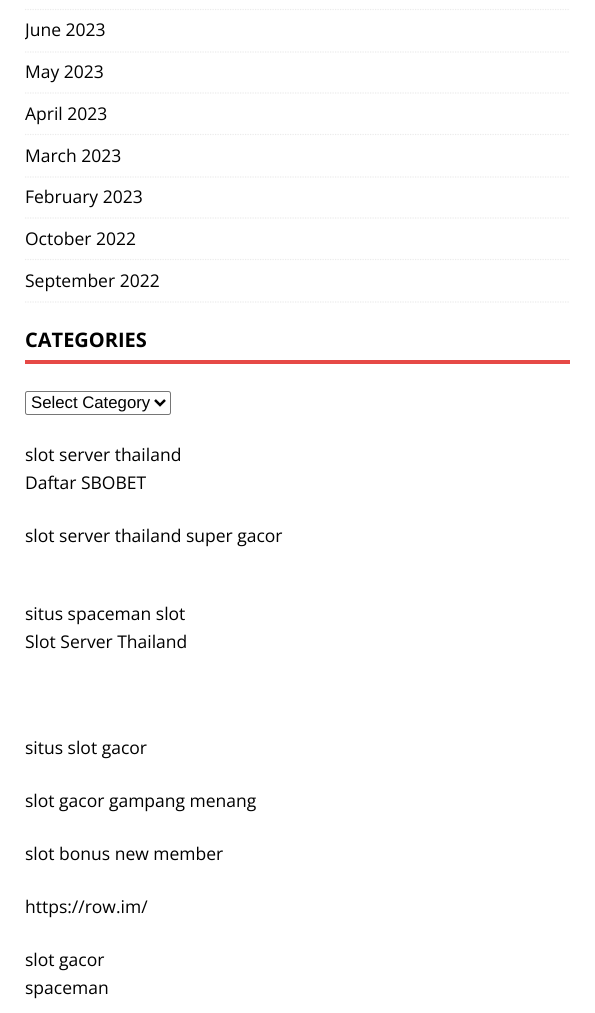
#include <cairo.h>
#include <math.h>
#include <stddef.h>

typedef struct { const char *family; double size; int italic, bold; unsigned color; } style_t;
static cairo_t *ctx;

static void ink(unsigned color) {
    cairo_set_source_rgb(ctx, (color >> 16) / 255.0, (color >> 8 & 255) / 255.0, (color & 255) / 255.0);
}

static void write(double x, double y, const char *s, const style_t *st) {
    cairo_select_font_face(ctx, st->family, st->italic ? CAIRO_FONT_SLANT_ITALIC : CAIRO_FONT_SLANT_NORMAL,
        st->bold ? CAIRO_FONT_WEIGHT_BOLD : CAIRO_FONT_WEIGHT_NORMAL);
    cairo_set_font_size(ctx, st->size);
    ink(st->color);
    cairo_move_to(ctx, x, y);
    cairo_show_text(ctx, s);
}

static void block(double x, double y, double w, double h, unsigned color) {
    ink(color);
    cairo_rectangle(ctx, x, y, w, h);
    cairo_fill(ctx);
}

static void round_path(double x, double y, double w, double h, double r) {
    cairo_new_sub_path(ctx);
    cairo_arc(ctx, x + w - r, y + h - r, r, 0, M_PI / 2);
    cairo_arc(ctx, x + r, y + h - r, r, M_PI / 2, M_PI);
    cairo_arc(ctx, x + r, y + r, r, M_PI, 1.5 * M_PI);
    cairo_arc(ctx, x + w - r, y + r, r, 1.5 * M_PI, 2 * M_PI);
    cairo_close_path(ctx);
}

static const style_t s1 = {"Open Sans", 17.5, 0, 0, 0x000000};
static const style_t s2 = {"Open Sans", 20, 0, 1, 0x000000};
static const style_t s3 = {"Liberation Sans", 16.75, 0, 0, 0x000000};

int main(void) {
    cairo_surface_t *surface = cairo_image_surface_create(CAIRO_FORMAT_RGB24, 595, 1013);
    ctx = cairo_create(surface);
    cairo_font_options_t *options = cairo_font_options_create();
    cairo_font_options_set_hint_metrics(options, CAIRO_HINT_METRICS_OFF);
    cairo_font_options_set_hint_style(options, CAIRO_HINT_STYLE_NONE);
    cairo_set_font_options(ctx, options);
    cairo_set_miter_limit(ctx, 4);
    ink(0xffffff);
    cairo_paint(ctx);
    cairo_new_path(ctx);
    cairo_move_to(ctx, 25, 9.5);
    cairo_line_to(ctx, 570, 9.5);
    ink(0xebebeb);
    cairo_set_line_width(ctx, 1.2);
    cairo_set_dash(ctx, (double[]){1.25, 1.25}, 2, 0);
    cairo_stroke(ctx);
    cairo_new_path(ctx);
    cairo_move_to(ctx, 25, 52);
    cairo_line_to(ctx, 570, 52);
    cairo_stroke(ctx);
    cairo_save(ctx);
    cairo_rectangle(ctx, 25, 0, 545, 303);
    cairo_clip(ctx);
    write(25, 36, "June 2023", &s1);
    cairo_restore(ctx);
    cairo_new_path(ctx);
    cairo_move_to(ctx, 25, 93);
    cairo_line_to(ctx, 570, 93);
    cairo_stroke(ctx);
    write(25, 78, "May 2023", &s1);
    cairo_new_path(ctx);
    cairo_move_to(ctx, 25, 134.5);
    cairo_line_to(ctx, 570, 134.5);
    ink(0xebebeb);
    cairo_stroke(ctx);
    write(25, 120, "April 2023", &s1);
    cairo_new_path(ctx);
    cairo_move_to(ctx, 25, 177);
    cairo_line_to(ctx, 570, 177);
    ink(0xebebeb);
    cairo_stroke(ctx);
    write(25, 162, "March 2023", &s1);
    cairo_new_path(ctx);
    cairo_move_to(ctx, 25, 218);
    cairo_line_to(ctx, 570, 218);
    ink(0xebebeb);
    cairo_stroke(ctx);
    write(25, 203, "February 2023", &s1);
    cairo_new_path(ctx);
    cairo_move_to(ctx, 25, 259.5);
    cairo_line_to(ctx, 570, 259.5);
    ink(0xebebeb);
    cairo_stroke(ctx);
    write(25, 245, "October 2022", &s1);
    cairo_new_path(ctx);
    cairo_move_to(ctx, 25, 302);
    cairo_line_to(ctx, 570, 302);
    ink(0xebebeb);
    cairo_stroke(ctx);
    write(25, 287, "September 2022", &s1);
    block(25, 360, 545, 4, 0xe64946);
    write(25, 347, "CATEGORIES", &s2);
    round_path(25.5, 391.5, 145, 23, 2);
    ink(0x767676);
    cairo_set_line_width(ctx, 1);
    cairo_set_dash(ctx, NULL, 0, 0);
    cairo_stroke(ctx);
    cairo_new_path(ctx);
    cairo_move_to(ctx, 155, 400);
    cairo_line_to(ctx, 160, 405);
    cairo_line_to(ctx, 165, 400);
    ink(0x000000);
    cairo_set_line_width(ctx, 2.5);
    cairo_stroke(ctx);
    write(31, 408, "Select Category", &s3);
    write(25, 461, "slot server thailand", &s1);
    write(25, 489, "Daftar SBOBET", &s1);
    write(25, 542, "slot server thailand super gacor", &s1);
    write(25, 620, "situs spaceman slot", &s1);
    write(25, 648, "Slot Server Thailand", &s1);
    write(25, 754, "situs slot gacor", &s1);
    write(25, 807, "slot gacor gampang menang", &s1);
    write(25, 860, "slot bonus new member", &s1);
    write(25, 913, "https://row.im/", &s1);
    write(25, 966, "slot gacor", &s1);
    write(25, 994, "spaceman", &s1);
    cairo_surface_write_to_png(surface, "screenshot.png");
    cairo_font_options_destroy(options);
    cairo_destroy(ctx);
    cairo_surface_destroy(surface);
    return 0;
}
